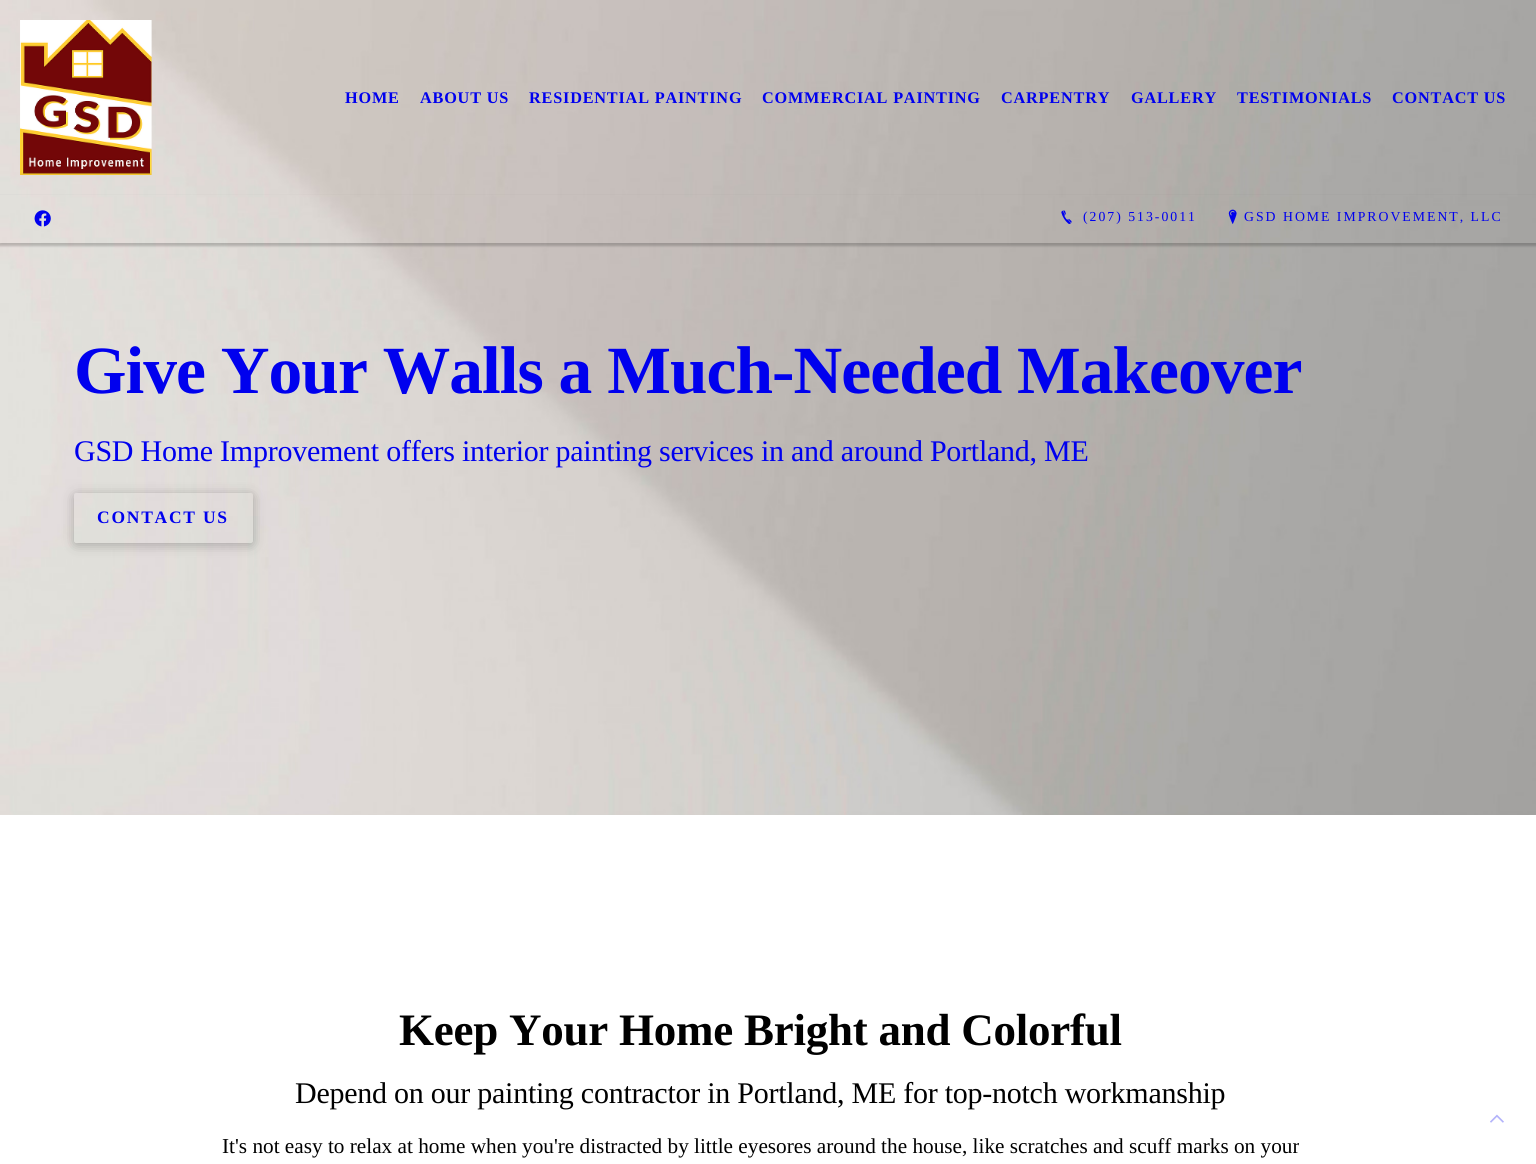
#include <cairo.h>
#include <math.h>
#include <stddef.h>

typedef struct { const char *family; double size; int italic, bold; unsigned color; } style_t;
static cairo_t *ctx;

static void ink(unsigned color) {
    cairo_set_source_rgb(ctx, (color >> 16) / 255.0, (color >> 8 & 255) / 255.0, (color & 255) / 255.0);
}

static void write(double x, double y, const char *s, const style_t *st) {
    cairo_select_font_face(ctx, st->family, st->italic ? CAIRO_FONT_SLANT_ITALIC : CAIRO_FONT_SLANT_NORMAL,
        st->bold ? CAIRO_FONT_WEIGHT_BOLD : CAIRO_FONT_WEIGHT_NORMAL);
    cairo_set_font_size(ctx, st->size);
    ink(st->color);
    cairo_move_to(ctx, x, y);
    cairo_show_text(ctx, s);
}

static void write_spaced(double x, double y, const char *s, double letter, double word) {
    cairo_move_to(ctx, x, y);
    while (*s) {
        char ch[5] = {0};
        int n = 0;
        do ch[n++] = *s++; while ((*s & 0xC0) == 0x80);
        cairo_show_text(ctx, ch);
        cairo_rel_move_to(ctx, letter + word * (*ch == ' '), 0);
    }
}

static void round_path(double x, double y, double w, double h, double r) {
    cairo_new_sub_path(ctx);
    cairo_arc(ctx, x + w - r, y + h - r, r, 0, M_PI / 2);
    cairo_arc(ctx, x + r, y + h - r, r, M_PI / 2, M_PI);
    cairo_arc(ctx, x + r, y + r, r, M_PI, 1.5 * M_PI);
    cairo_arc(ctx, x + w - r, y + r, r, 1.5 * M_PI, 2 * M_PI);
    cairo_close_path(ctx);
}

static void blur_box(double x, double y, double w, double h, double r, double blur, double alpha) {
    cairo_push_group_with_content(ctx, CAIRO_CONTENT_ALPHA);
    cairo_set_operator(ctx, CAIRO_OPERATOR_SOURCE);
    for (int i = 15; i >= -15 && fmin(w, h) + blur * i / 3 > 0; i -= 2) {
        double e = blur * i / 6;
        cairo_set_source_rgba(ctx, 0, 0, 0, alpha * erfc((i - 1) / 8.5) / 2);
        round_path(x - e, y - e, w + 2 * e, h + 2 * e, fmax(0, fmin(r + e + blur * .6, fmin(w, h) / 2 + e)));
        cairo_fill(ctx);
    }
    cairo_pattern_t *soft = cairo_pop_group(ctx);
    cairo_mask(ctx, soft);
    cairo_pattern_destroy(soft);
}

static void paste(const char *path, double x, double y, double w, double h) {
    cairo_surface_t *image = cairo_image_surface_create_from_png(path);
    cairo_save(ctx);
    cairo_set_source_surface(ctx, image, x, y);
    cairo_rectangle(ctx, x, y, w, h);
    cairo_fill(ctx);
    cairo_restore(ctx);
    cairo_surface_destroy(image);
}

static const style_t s1 = {"Liberation Serif", 21.25, 0, 0, 0x000000};
static const style_t s2 = {"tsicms", 18, 0, 0, 0xb3b3fa};

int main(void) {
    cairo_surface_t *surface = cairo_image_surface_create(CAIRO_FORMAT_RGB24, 1536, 1164);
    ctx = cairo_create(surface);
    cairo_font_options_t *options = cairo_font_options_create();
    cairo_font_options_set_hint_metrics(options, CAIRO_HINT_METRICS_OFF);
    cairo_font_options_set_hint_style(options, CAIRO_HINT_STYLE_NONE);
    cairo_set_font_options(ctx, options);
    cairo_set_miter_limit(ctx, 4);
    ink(0xffffff);
    cairo_paint(ctx);
    paste("pic5.png", 0, 0, 1536, 815);
    paste("pic1.png", 20, 20, 132, 155);
    cairo_select_font_face(ctx, "Liberation Serif", CAIRO_FONT_SLANT_NORMAL, CAIRO_FONT_WEIGHT_BOLD);
    cairo_set_font_size(ctx, 16.25);
    ink(0x0000ee);
    write_spaced(345, 103, "HOME", 0.8, 0);
    write_spaced(420, 103, "ABOUT US", 0.8, 0);
    write_spaced(529, 103, "RESIDENTIAL PAINTING", 0.8, 0);
    write_spaced(762, 103, "COMMERCIAL PAINTING", 0.8, 0);
    write_spaced(1001, 103, "CARPENTRY", 0.8, 0);
    write_spaced(1131, 103, "GALLERY", 0.8, 0);
    write_spaced(1237, 103, "TESTIMONIALS", 0.8, 0);
    write_spaced(1392, 103, "CONTACT US", 0.8, 0);
    cairo_save(ctx);
    cairo_set_fill_rule(ctx, CAIRO_FILL_RULE_EVEN_ODD);
    cairo_new_path(ctx);
    cairo_move_to(ctx, 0, 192);
    cairo_line_to(ctx, 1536, 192);
    cairo_line_to(ctx, 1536, 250);
    cairo_line_to(ctx, 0, 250);
    cairo_close_path(ctx);
    cairo_move_to(ctx, 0, 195);
    cairo_line_to(ctx, 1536, 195);
    cairo_line_to(ctx, 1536, 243);
    cairo_line_to(ctx, 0, 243);
    cairo_close_path(ctx);
    cairo_clip(ctx);
    ink(0x000000);
    blur_box(-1, 196, 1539, 50, 0, 1, 0.2);
    cairo_restore(ctx);
    paste("pic2.png", 34, 210, 17, 17);
    paste("pic3.png", 1061, 210, 11, 14);
    cairo_select_font_face(ctx, "Liberation Serif", CAIRO_FONT_SLANT_NORMAL, CAIRO_FONT_WEIGHT_NORMAL);
    cairo_set_font_size(ctx, 13.75);
    write_spaced(1083, 221, "(207) 513-0011", 2, 0);
    paste("pic4.png", 1228, 209, 9, 15);
    write_spaced(1244, 221, "GSD HOME IMPROVEMENT, LLC", 2, 0);
    cairo_select_font_face(ctx, "Liberation Serif", CAIRO_FONT_SLANT_NORMAL, CAIRO_FONT_WEIGHT_BOLD);
    cairo_set_font_size(ctx, 67.5);
    write_spaced(74, 393, "Give Your Walls a Much-Needed Makeover", -1, 0);
    cairo_select_font_face(ctx, "Liberation Serif", CAIRO_FONT_SLANT_NORMAL, CAIRO_FONT_WEIGHT_NORMAL);
    cairo_set_font_size(ctx, 30);
    write_spaced(74, 461, "GSD Home Improvement offers interior painting services in and around Portland, ME", -0.25, 0);
    cairo_save(ctx);
    cairo_set_fill_rule(ctx, CAIRO_FILL_RULE_EVEN_ODD);
    cairo_new_path(ctx);
    cairo_move_to(ctx, 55, 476);
    cairo_line_to(ctx, 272, 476);
    cairo_line_to(ctx, 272, 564);
    cairo_line_to(ctx, 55, 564);
    cairo_close_path(ctx);
    cairo_move_to(ctx, 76.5, 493);
    cairo_line_to(ctx, 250.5, 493);
    cairo_curve_to(ctx, 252, 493, 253, 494, 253, 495.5);
    cairo_line_to(ctx, 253, 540.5);
    cairo_curve_to(ctx, 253, 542, 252, 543, 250.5, 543);
    cairo_line_to(ctx, 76.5, 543);
    cairo_curve_to(ctx, 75, 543, 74, 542, 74, 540.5);
    cairo_line_to(ctx, 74, 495.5);
    cairo_curve_to(ctx, 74, 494, 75, 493, 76.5, 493);
    cairo_close_path(ctx);
    cairo_clip(ctx);
    ink(0x000000);
    blur_box(74, 495, 179, 50, 2.5, 6, 0.25);
    cairo_restore(ctx);
    cairo_select_font_face(ctx, "Liberation Serif", CAIRO_FONT_SLANT_NORMAL, CAIRO_FONT_WEIGHT_BOLD);
    cairo_set_font_size(ctx, 17.5);
    write_spaced(97, 523, "CONTACT US", 1.75, 0);
    cairo_set_font_size(ctx, 45);
    ink(0x000000);
    write_spaced(399, 1045, "Keep Your Home Bright and Colorful", -0.25, 0);
    cairo_select_font_face(ctx, "Liberation Serif", CAIRO_FONT_SLANT_NORMAL, CAIRO_FONT_WEIGHT_NORMAL);
    cairo_set_font_size(ctx, 30);
    write_spaced(295, 1103, "Depend on our painting contractor in Portland, ME for top-notch workmanship", -0.25, 0);
    write(222, 1153, "It's not easy to relax at home when you're distracted by little eyesores around the house, like scratches and scuff marks on your", &s1);
    write(1490, 1126, "+", &s2);
    cairo_surface_write_to_png(surface, "screenshot.png");
    cairo_font_options_destroy(options);
    cairo_destroy(ctx);
    cairo_surface_destroy(surface);
    return 0;
}
